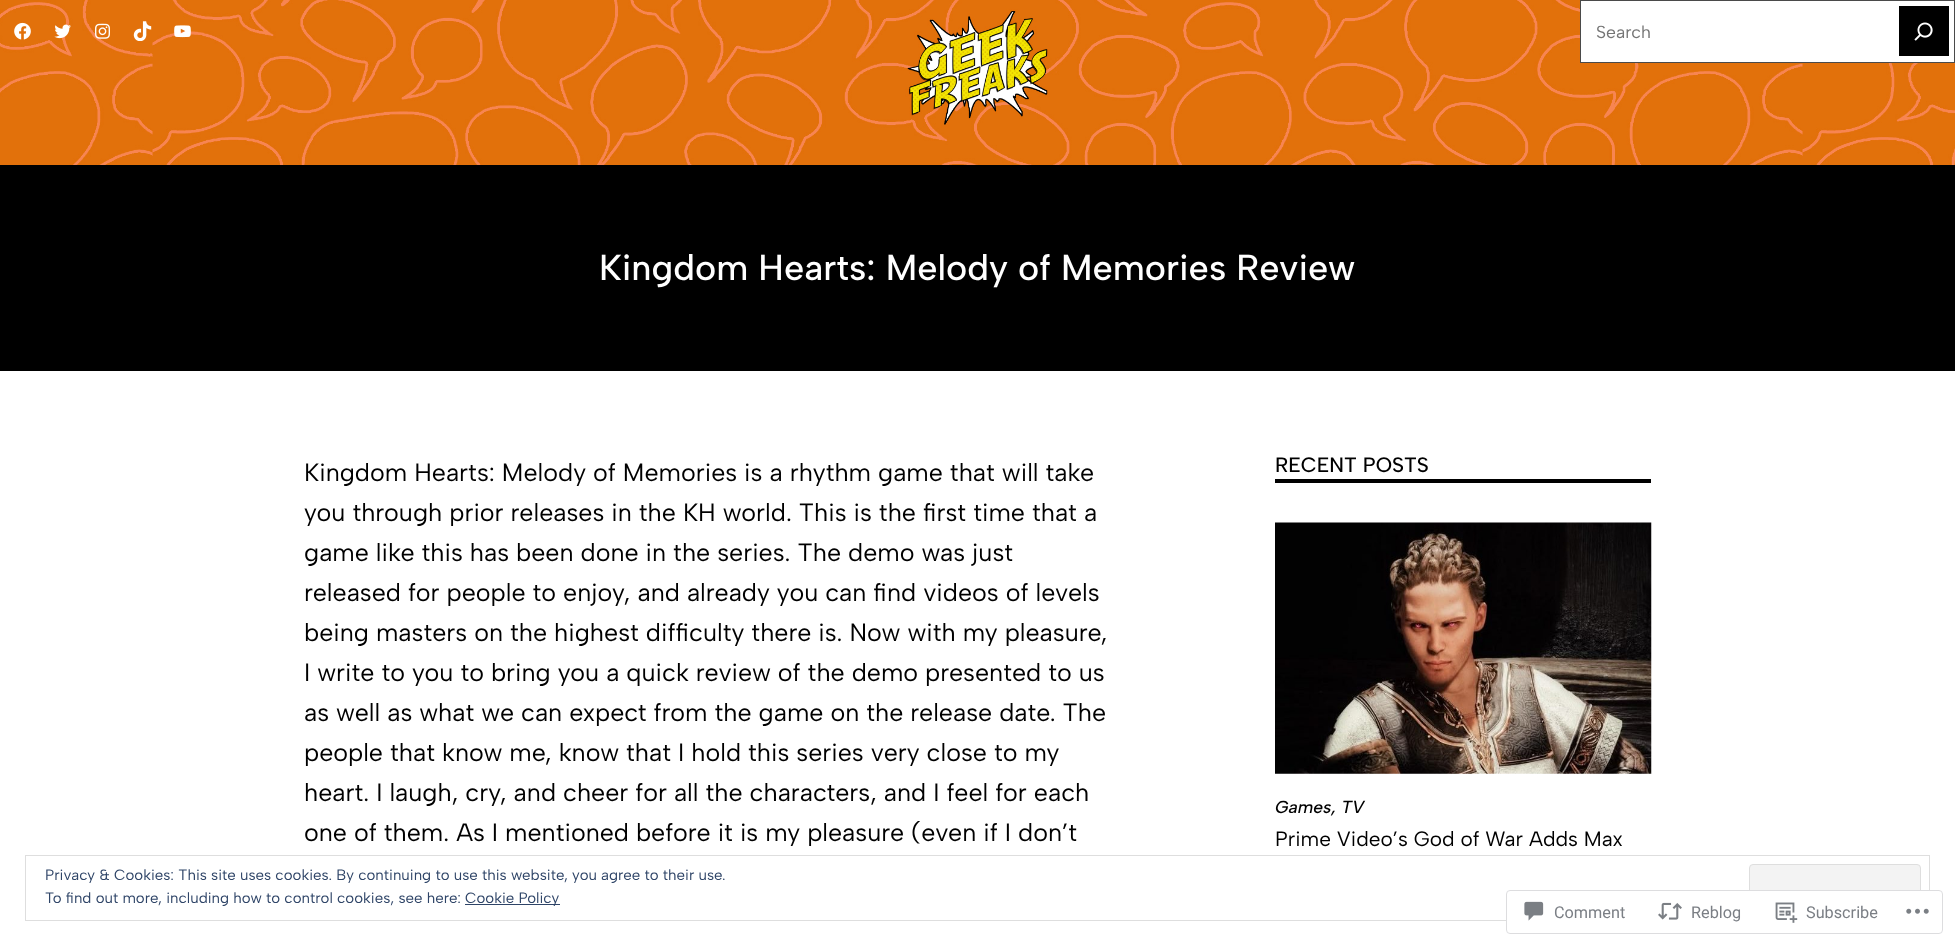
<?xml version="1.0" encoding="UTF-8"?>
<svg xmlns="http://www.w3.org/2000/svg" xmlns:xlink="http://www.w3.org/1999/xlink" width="1955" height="946">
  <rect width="100%" height="100%" fill="#ffffff" />
  <image x="0" y="0" width="1955" height="165" xlink:href="image1.png" />
  <image x="14" y="22" width="17" height="18" xlink:href="image2.png" />
  <image x="54" y="24" width="17" height="15" xlink:href="image3.png" />
  <image x="95" y="23" width="15" height="16" xlink:href="image4.png" />
  <image x="133" y="21" width="19" height="20" xlink:href="image5.png" />
  <image x="174" y="25" width="17" height="13" xlink:href="image6.png" />
  <rect x="1580.5" y="0.5" width="374" height="62" fill="#ffffff" stroke="#4a4a4a" />
  <rect x="1899" y="6" width="50" height="50" fill="#000000" />
  <image x="1914" y="22" width="19" height="19" xlink:href="image7.png" />
  <rect y="165" width="1955" height="206" fill="#000000" />
  <rect x="1275" y="479" width="376" height="4" fill="#000000" />
  <image x="1275" y="522" width="377" height="252" xlink:href="image8.png" />
  <rect x="25.5" y="855.5" width="1904" height="65" fill="none" stroke="#dedede" />
  <rect x="1749.5" y="864.5" width="171" height="48" rx="3.5" fill="#f3f3f3" stroke="#dedede" />
  <rect x="465" y="904" width="95" height="1" fill="#2e4467" />
  <rect x="1506" y="890" width="437" height="44" rx="4" fill="#ffffff" fill-opacity="0.98" />
  <rect x="1506.5" y="890.5" width="436" height="43" rx="3.5" fill="none" stroke="#dcdcde" stroke-opacity="0.98" />
  <image x="1524" y="901" width="20" height="20" xlink:href="image9.png" />
  <image x="1658" y="902" width="24" height="18" xlink:href="image10.png" />
  <image x="1775" y="902" width="23" height="21" xlink:href="image11.png" />
  <image x="1906" y="908" width="23" height="6" xlink:href="image12.png" />
  <text x="1596" y="38" style="font-family: Albert Sans; font-size: 17.5px; fill: #757575">Search</text>
  <text x="599" y="280" style="font-family: Albert Sans; font-size: 36px; font-weight: 500; fill: #ffffff">Kingdom Hearts: Melody of Memories Review</text>
  <text x="304" y="481" style="font-family: Albert Sans; font-size: 25px; fill: #000000">Kingdom Hearts: Melody of Memories is a rhythm game that will take</text>
  <text x="304" y="521" style="font-family: Albert Sans; font-size: 25px; fill: #000000">you through prior releases in the KH world. This is the first time that a</text>
  <text x="304" y="561" style="font-family: Albert Sans; font-size: 25px; fill: #000000">game like this has been done in the series. The demo was just</text>
  <text x="304" y="601" style="font-family: Albert Sans; font-size: 25px; fill: #000000">released for people to enjoy, and already you can find videos of levels</text>
  <text x="304" y="641" style="font-family: Albert Sans; font-size: 25px; fill: #000000">being masters on the highest difficulty there is. Now with my pleasure,</text>
  <text x="304" y="681" style="font-family: Albert Sans; font-size: 25px; fill: #000000">I write to you to bring you a quick review of the demo presented to us</text>
  <text x="304" y="721" style="font-family: Albert Sans; font-size: 25px; fill: #000000">as well as what we can expect from the game on the release date. The</text>
  <text x="304" y="761" style="font-family: Albert Sans; font-size: 25px; fill: #000000">people that know me, know that I hold this series very close to my</text>
  <text x="304" y="801" style="font-family: Albert Sans; font-size: 25px; fill: #000000">heart. I laugh, cry, and cheer for all the characters, and I feel for each</text>
  <text x="304" y="841" style="font-family: Albert Sans; font-size: 25px; fill: #000000">one of them. As I mentioned before it is my pleasure (even if I don’t</text>
  <text x="1275" y="472" style="font-family: Albert Sans; font-size: 20.8px; font-weight: 500; fill: #000000">RECENT POSTS</text>
  <text x="1275" y="813" style="font-family: Albert Sans; font-size: 17.5px; font-weight: 500; font-style: italic; fill: #000000">Games, TV</text>
  <text x="1275" y="846" style="font-family: Albert Sans; font-size: 20.8px; fill: #000000">Prime Video’s God of War Adds Max</text>
  <text x="45" y="880" style="font-family: Albert Sans; font-size: 15px; fill: #2e4467">Privacy &amp; Cookies: This site uses cookies. By continuing to use this website, you agree to their use.</text>
  <text x="45" y="903" style="font-family: Albert Sans; font-size: 15px; fill: #2e4467">To find out more, including how to control cookies, see here:</text>
  <text x="465" y="903" style="font-family: Albert Sans; font-size: 15px; fill: #2e4467">Cookie Policy</text>
  <text x="1554" y="918" style="font-family: Roboto; font-size: 16.25px; fill: #7b7f85">Comment</text>
  <text x="1691" y="918" style="font-family: Roboto; font-size: 16.25px; fill: #7b7f85">Reblog</text>
  <text x="1806" y="918" style="font-family: Roboto; font-size: 16.25px; fill: #7b7f85">Subscribe</text>
</svg>
